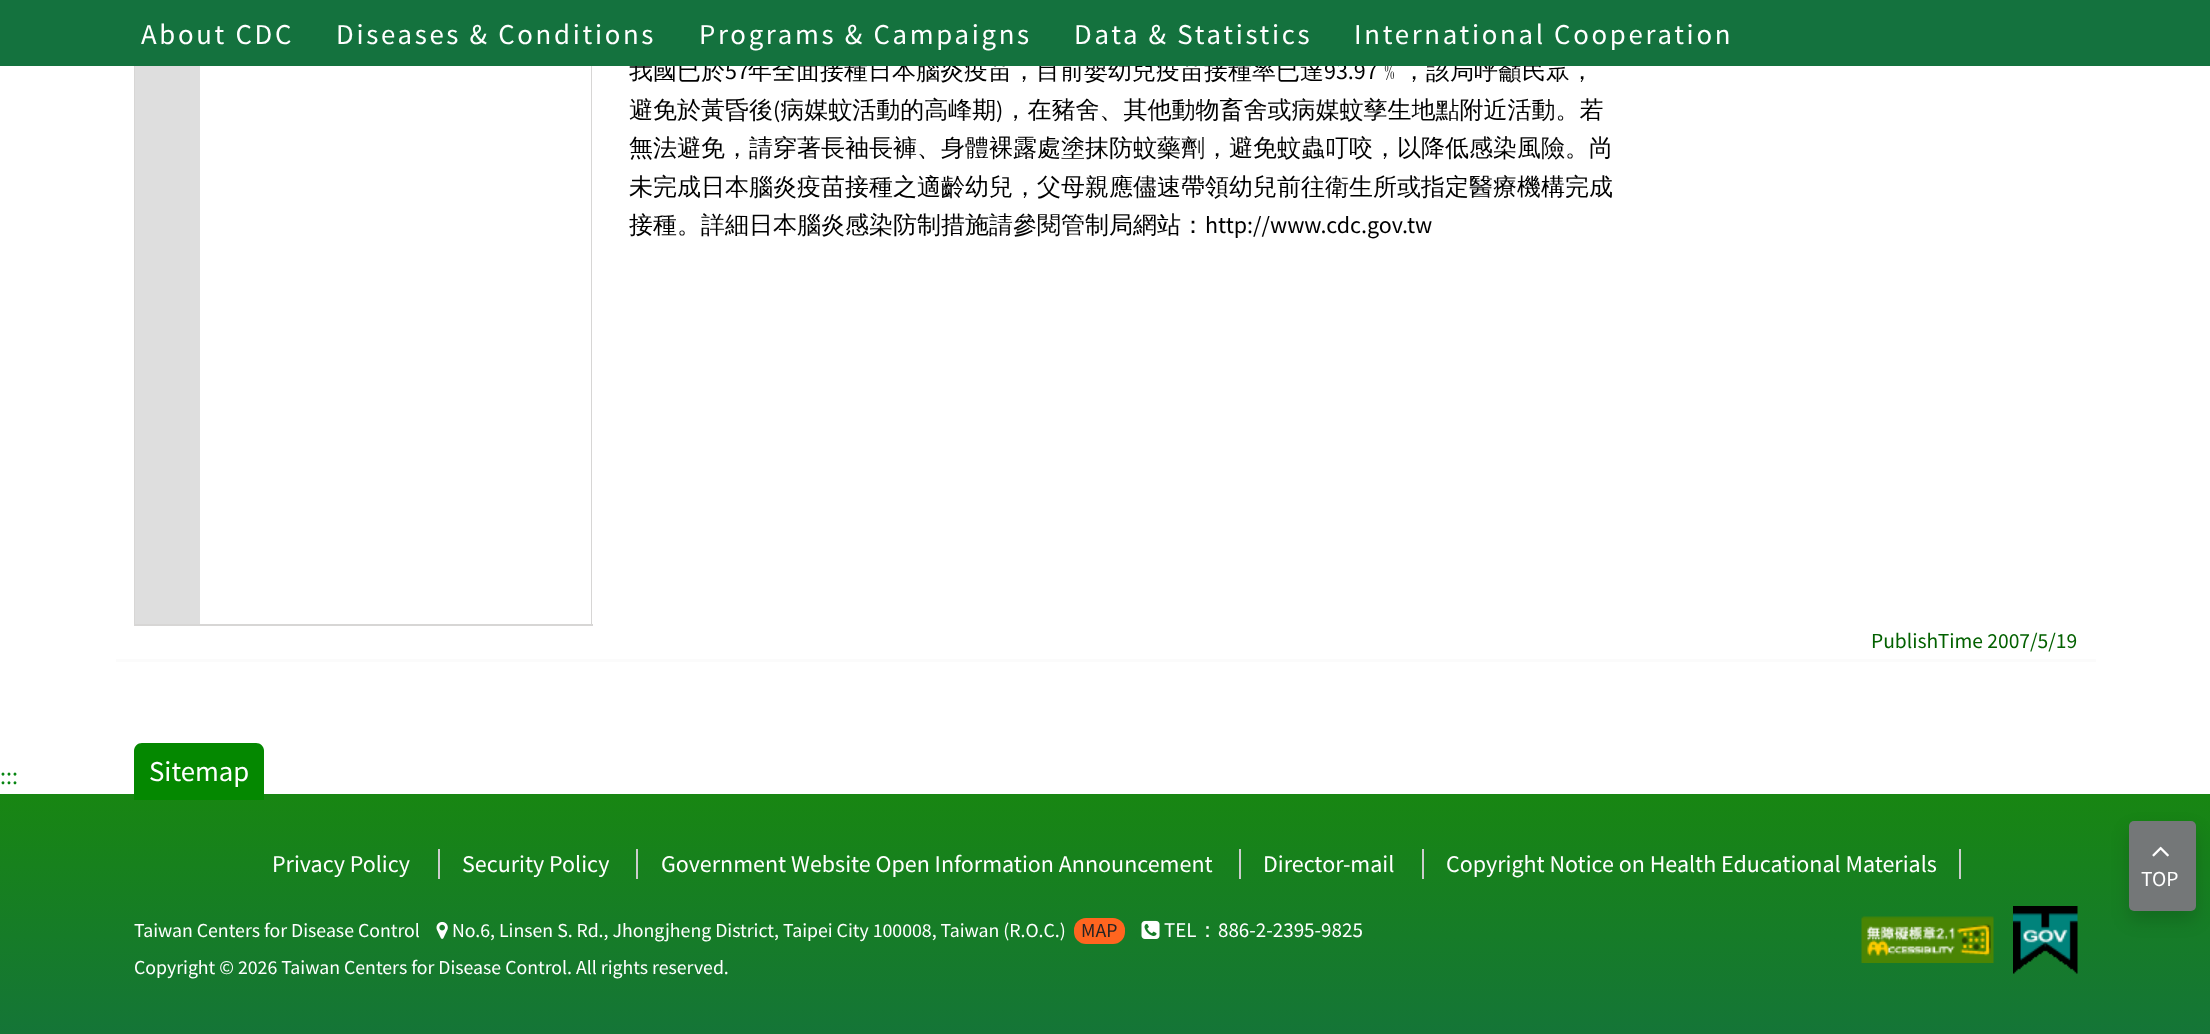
<?xml version="1.0" encoding="UTF-8"?>
<svg xmlns="http://www.w3.org/2000/svg" xmlns:xlink="http://www.w3.org/1999/xlink" width="2210" height="1034">
  <defs>
    <linearGradient id="g1" gradientUnits="userSpaceOnUse" x1="1106" y1="793" x2="1106" y2="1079"><stop offset="0" stop-color="#188612" /><stop offset="1" stop-color="#14723e" /></linearGradient>
  </defs>
  <rect width="100%" height="100%" fill="#ffffff" />
  <rect x="135" y="66" width="65" height="558" fill="#dedede" />
  <path d="M 592 -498 v 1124 l -1 -2 v -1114 z" fill="#d7d6d5" />
  <rect x="134" y="624" width="459" height="2" fill="#d7d6d5" />
  <path d="M 134 626 v -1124 l 1 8 v 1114 z" fill="#d7d6d5" />
  <rect x="116" y="659" width="1980" height="3" fill="#fbfbfb" />
  <rect y="794" width="2210" height="240" fill="url(#g1)" />
  <path d="M 142 743 h 114 c 4.5 0 8 3.5 8 8 v 49 h -130 v -49 c 0 -4.5 3.5 -8 8 -8 z" fill="#048800" />
  <rect x="438" y="849" width="2" height="30" fill="#cccccc" />
  <rect x="636" y="849" width="2" height="30" fill="#cccccc" />
  <rect x="1239" y="849" width="2" height="30" fill="#cccccc" />
  <rect x="1959" y="849" width="2" height="30" fill="#cccccc" />
  <rect x="1422" y="849" width="2" height="30" fill="#cccccc" />
  <image x="436" y="921" width="12" height="18" xlink:href="image1.png" />
  <rect x="1074" y="918" width="51" height="26" rx="12" fill="#ff651f" />
  <image x="1141" y="920" width="19" height="19" xlink:href="image2.png" />
  <image x="1861" y="916" width="133" height="47" xlink:href="image3.png" />
  <image x="2013" y="906" width="65" height="68" xlink:href="image4.png" />
  <rect x="2129" y="830" width="67" height="90" rx="5" fill="#000000" fill-opacity="0.15" filter="blur(9px)" />
  <rect x="2129" y="821" width="67" height="90" rx="5" fill="#747778" />
  <image x="2152" y="846" width="17" height="11" xlink:href="image5.png" />
  <text x="629" y="79" style="font-family: WenQuanYi Zen Hei; font-size: 24px; font-weight: 500; fill: #000000">我國已於</text>
  <text x="725" y="79" style="font-family: Source Sans Pro; font-size: 24px; fill: #000000">57</text>
  <text x="748" y="79" style="font-family: WenQuanYi Zen Hei; font-size: 24px; font-weight: 500; fill: #000000">年全面接種日本腦炎疫苗，目前嬰幼兒疫苗接種率已達</text>
  <text x="1324" y="79" style="font-family: Source Sans Pro; font-size: 24px; fill: #000000">93.97</text>
  <text x="1378" y="79" style="font-family: WenQuanYi Zen Hei; font-size: 24px; font-weight: 500; fill: #000000">﹪，該局呼籲民眾，</text>
  <rect width="2210" height="66" fill="#14723e" />
  <text x="1354" y="44" style="font-family: Source Sans Pro; font-size: 28.75px; letter-spacing: 2.7px; fill: #ffffff">International Cooperation</text>
  <text x="1074" y="44" style="font-family: Source Sans Pro; font-size: 28.75px; letter-spacing: 2.7px; fill: #ffffff">Data &amp; Statistics</text>
  <text x="699" y="44" style="font-family: Source Sans Pro; font-size: 28.75px; letter-spacing: 2.7px; fill: #ffffff">Programs &amp; Campaigns</text>
  <text x="336" y="44" style="font-family: Source Sans Pro; font-size: 28.75px; letter-spacing: 2.7px; fill: #ffffff">Diseases &amp; Conditions</text>
  <text x="141" y="44" style="font-family: Source Sans Pro; font-size: 28.75px; letter-spacing: 2.7px; fill: #ffffff">About CDC</text>
  <text x="629" y="118" style="font-family: WenQuanYi Zen Hei; font-size: 24px; font-weight: 500; fill: #000000">避免於黃昏後 病媒蚊活動的高峰期 ，在豬舍、其他動物畜舍或病媒蚊孳生地點附近活動。若</text>
  <text x="773" y="118" style="font-family: Source Sans Pro; font-size: 24px; fill: #000000">(</text>
  <text x="996" y="118" style="font-family: Source Sans Pro; font-size: 24px; fill: #000000">)</text>
  <text x="629" y="156" style="font-family: WenQuanYi Zen Hei; font-size: 24px; font-weight: 500; fill: #000000">無法避免，請穿著長袖長褲、身體裸露處塗抹防蚊藥劑，避免蚊蟲叮咬，以降低感染風險。尚</text>
  <text x="629" y="195" style="font-family: WenQuanYi Zen Hei; font-size: 24px; font-weight: 500; fill: #000000">未完成日本腦炎疫苗接種之適齡幼兒，父母親應儘速帶領幼兒前往衛生所或指定醫療機構完成</text>
  <text x="629" y="233" style="font-family: WenQuanYi Zen Hei; font-size: 24px; font-weight: 500; fill: #000000">接種。詳細日本腦炎感染防制措施請參閱管制局網站：</text>
  <text x="1205" y="233" style="font-family: Source Sans Pro; font-size: 24px; fill: #000000">http://www.cdc.gov.tw</text>
  <text x="1871" y="648" style="font-family: Source Sans Pro; font-size: 21.5px; fill: #036100">PublishTime 2007/5/19</text>
  <text x="0" y="784" style="font-family: Source Sans Pro; font-size: 24px; fill: #068511">:::</text>
  <text x="149" y="781" style="font-family: Source Sans Pro; font-size: 28.75px; fill: #ffffff">Sitemap</text>
  <text x="272" y="872" style="font-family: Source Sans Pro; font-size: 24px; fill: #ffffff">Privacy Policy</text>
  <text x="462" y="872" style="font-family: Source Sans Pro; font-size: 24px; fill: #ffffff">Security Policy</text>
  <text x="661" y="872" style="font-family: Source Sans Pro; font-size: 24px; fill: #ffffff">Government Website Open Information Announcement</text>
  <text x="1263" y="872" style="font-family: Source Sans Pro; font-size: 24px; fill: #ffffff">Director-mail</text>
  <text x="1446" y="872" style="font-family: Source Sans Pro; font-size: 24px; fill: #ffffff">Copyright Notice on Health Educational Materials</text>
  <text x="134" y="937" style="font-family: Source Sans Pro; font-size: 19.8px; fill: #ffffff">Taiwan Centers for Disease Control</text>
  <text x="452" y="937" style="font-family: Source Sans Pro; font-size: 19.8px; fill: #ffffff">No.6, Linsen S. Rd., Jhongjheng District, Taipei City 100008, Taiwan (R.O.C.)</text>
  <text x="1081" y="937" style="font-family: Source Sans Pro; font-size: 19.8px; fill: #242323">MAP</text>
  <text x="1164" y="937" style="font-family: Source Sans Pro; font-size: 21px; fill: #ffffff">TEL</text>
  <text x="1197" y="937" style="font-family: WenQuanYi Zen Hei; font-size: 21px; font-weight: 500; fill: #ffffff">：</text>
  <text x="1218" y="937" style="font-family: Source Sans Pro; font-size: 21px; fill: #ffffff">886-2-2395-9825</text>
  <text x="134" y="974" style="font-family: Source Sans Pro; font-size: 19.8px; fill: #ffffff">Copyright © 2026 Taiwan Centers for Disease Control. All rights reserved.</text>
  <text x="2141" y="886" style="font-family: Source Sans Pro; font-size: 21.5px; fill: #ffffff">TOP</text>
</svg>
